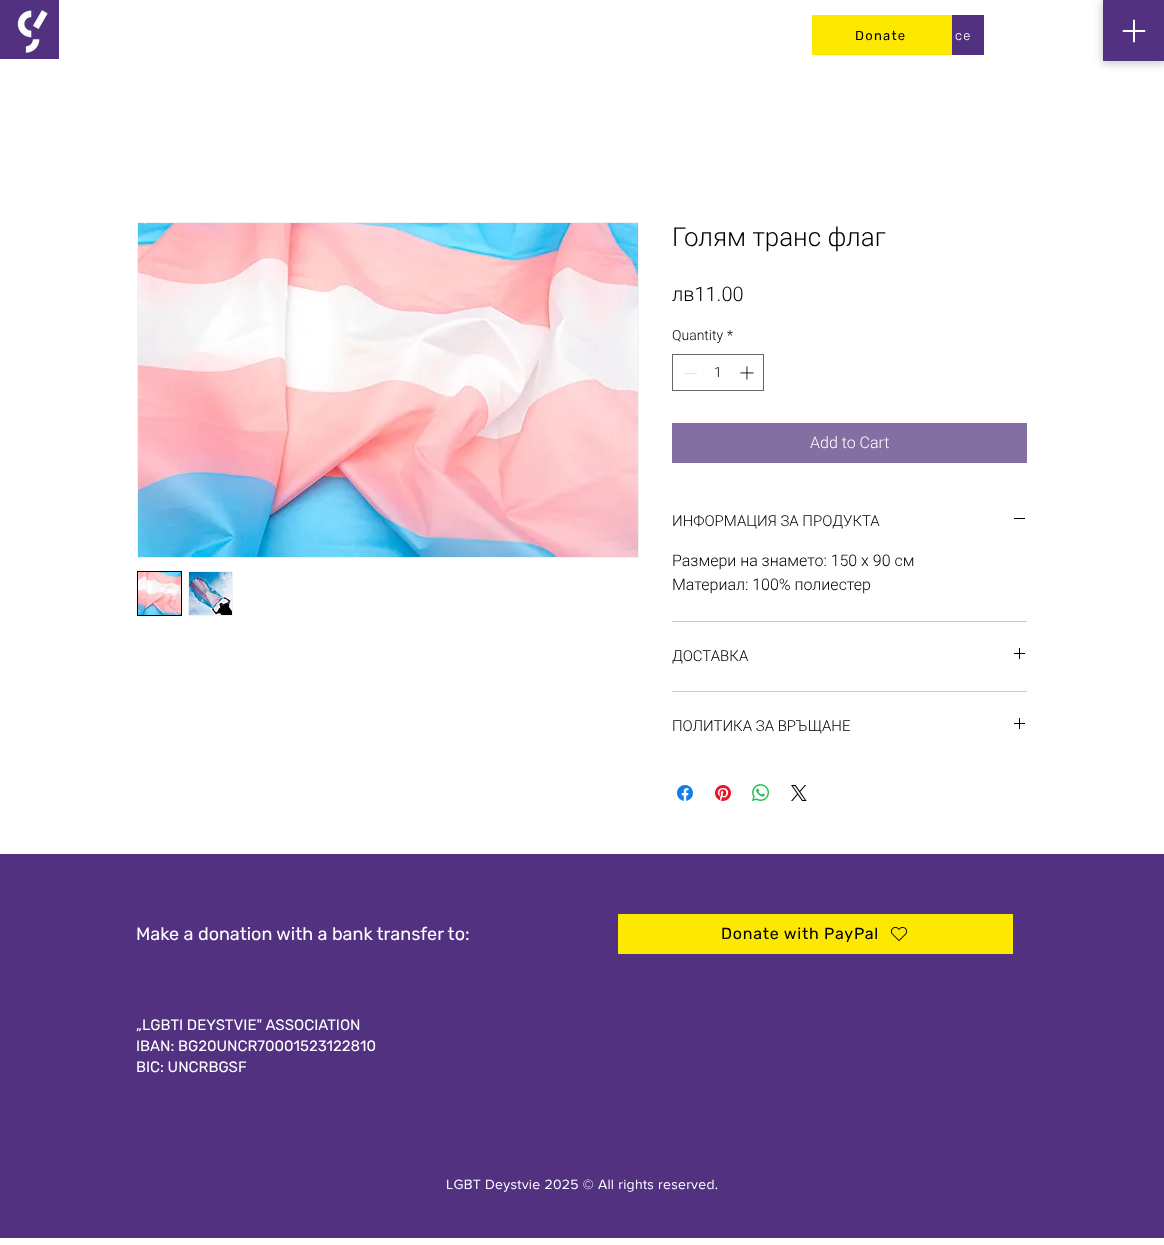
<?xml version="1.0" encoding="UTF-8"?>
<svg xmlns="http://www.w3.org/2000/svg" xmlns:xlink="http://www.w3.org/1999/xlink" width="1164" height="1245">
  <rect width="100%" height="100%" fill="#ffffff" />
  <rect width="59" height="59" fill="#523181" />
  <image x="17" y="10" width="31" height="43" xlink:href="image1.png" />
  <rect x="812" y="15" width="140" height="40" fill="#fde900" />
  <rect x="952" y="15" width="32" height="40" fill="#523181" />
  <rect x="1102" y="1" width="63" height="63" fill="#000000" fill-opacity="0.2" filter="blur(4px)" />
  <rect x="1103" width="61" height="61" fill="#523181" />
  <image x="1122" y="19" width="24" height="24" xlink:href="image2.png" />
  <rect x="137.5" y="222.5" width="501" height="335" fill="none" stroke="#f2f2f2" />
  <image x="138" y="223" width="500" height="334" xlink:href="image3.png" />
  <rect x="137.5" y="571.5" width="44" height="44" fill="none" stroke="#000000" />
  <image x="138" y="572" width="43" height="43" xlink:href="image4.png" />
  <rect x="188.5" y="571.5" width="44" height="44" fill="none" stroke="#f2f2f2" />
  <image x="189" y="572" width="43" height="43" xlink:href="image5.png" />
  <rect x="672.5" y="354.5" width="91" height="36" fill="none" stroke="#666666" />
  <rect x="684" y="373" width="13" height="1" fill="#e3e3e3" />
  <image x="740" y="366" width="14" height="14" xlink:href="image6.png" />
  <rect x="672" y="423" width="355" height="40" fill="#836fa1" />
  <rect x="672" y="621" width="355" height="1" fill="#c9c9c9" />
  <rect x="1014" y="518" width="11" height="1" fill="#000000" />
  <rect x="672" y="691" width="355" height="1" fill="#c9c9c9" />
  <image x="1014" y="648" width="11" height="11" xlink:href="image7.png" />
  <image x="1014" y="718" width="11" height="11" xlink:href="image7.png" />
  <image x="677" y="785" width="16" height="16" xlink:href="image8.png" />
  <image x="715" y="785" width="16" height="16" xlink:href="image9.png" />
  <image x="752" y="784" width="17" height="17" xlink:href="image10.png" />
  <image x="791" y="785" width="16" height="16" xlink:href="image11.png" />
  <rect y="854" width="1164" height="384" fill="#523181" />
  <rect x="618" y="914" width="395" height="40" fill="#fde900" />
  <image x="890" y="927" width="18" height="14" xlink:href="image12.png" />
  <text x="855" y="40" style="font-family: 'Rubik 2'; font-size: 13px; letter-spacing: 1.25px; fill: #000000">Donate</text>
  <text x="955" y="40" style="font-family: Rubik; font-size: 13px; font-weight: 300; letter-spacing: 1.25px; fill: #ffffff">ce</text>
  <text x="672" y="246" style="font-family: Roboto; font-size: 26px; font-weight: 300; fill: #000000">Голям транс флаг</text>
  <text x="672" y="301" style="font-family: Roboto; font-size: 20px; font-weight: 300; fill: #000000">лв11.00</text>
  <text x="672" y="340" style="font-family: Roboto; font-size: 14px; font-weight: 300; fill: #000000">Quantity</text>
  <text x="727" y="340" style="font-family: Roboto; font-size: 14px; font-weight: 300; fill: #000000">*</text>
  <text x="714" y="377" style="font-family: Roboto; font-size: 14px; font-weight: 300; fill: #000000">1</text>
  <text x="810" y="448" style="font-family: Roboto; font-size: 16px; font-weight: 300; fill: #ffffff">Add to Cart</text>
  <text x="672" y="526" style="font-family: Roboto; font-size: 15px; font-weight: 300; fill: #000000">ИНФОРМАЦИЯ ЗА ПРОДУКТА</text>
  <text x="672" y="566" style="font-family: Roboto; font-size: 16px; font-weight: 300; fill: #000000">Размери на знамето: 150 х 90 см</text>
  <text x="672" y="590" style="font-family: Roboto; font-size: 16px; font-weight: 300; fill: #000000">Материал: 100% полиестер</text>
  <text x="672" y="661" style="font-family: Roboto; font-size: 15px; font-weight: 300; fill: #000000">ДОСТАВКА</text>
  <text x="672" y="731" style="font-family: Roboto; font-size: 15px; font-weight: 300; fill: #000000">ПОЛИТИКА ЗА ВРЪЩАНЕ</text>
  <text x="136" y="940" style="font-family: Rubik; font-size: 18px; fill: #ffffff">Make a donation with a bank transfer to:</text>
  <text x="721" y="939" style="font-family: Rubik; font-size: 16px; letter-spacing: 0.75px; fill: #000000">Donate with PayPal</text>
  <text x="136" y="1030" style="font-family: Rubik; font-size: 15px; fill: #ffffff">„LGBTI DEYSTVIE" ASSOCIATION</text>
  <text x="136" y="1051" style="font-family: Rubik; font-size: 15px; fill: #ffffff">IBAN: BG20UNCR70001523122810</text>
  <text x="136" y="1072" style="font-family: Rubik; font-size: 15px; fill: #ffffff">BIC: UNCRBGSF</text>
  <text x="446" y="1189" style="font-family: 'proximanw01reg'; font-size: 14px; letter-spacing: 0.3px; fill: #ffffff">LGBT Deystvie 2025 © All rights reserved.</text>
</svg>
